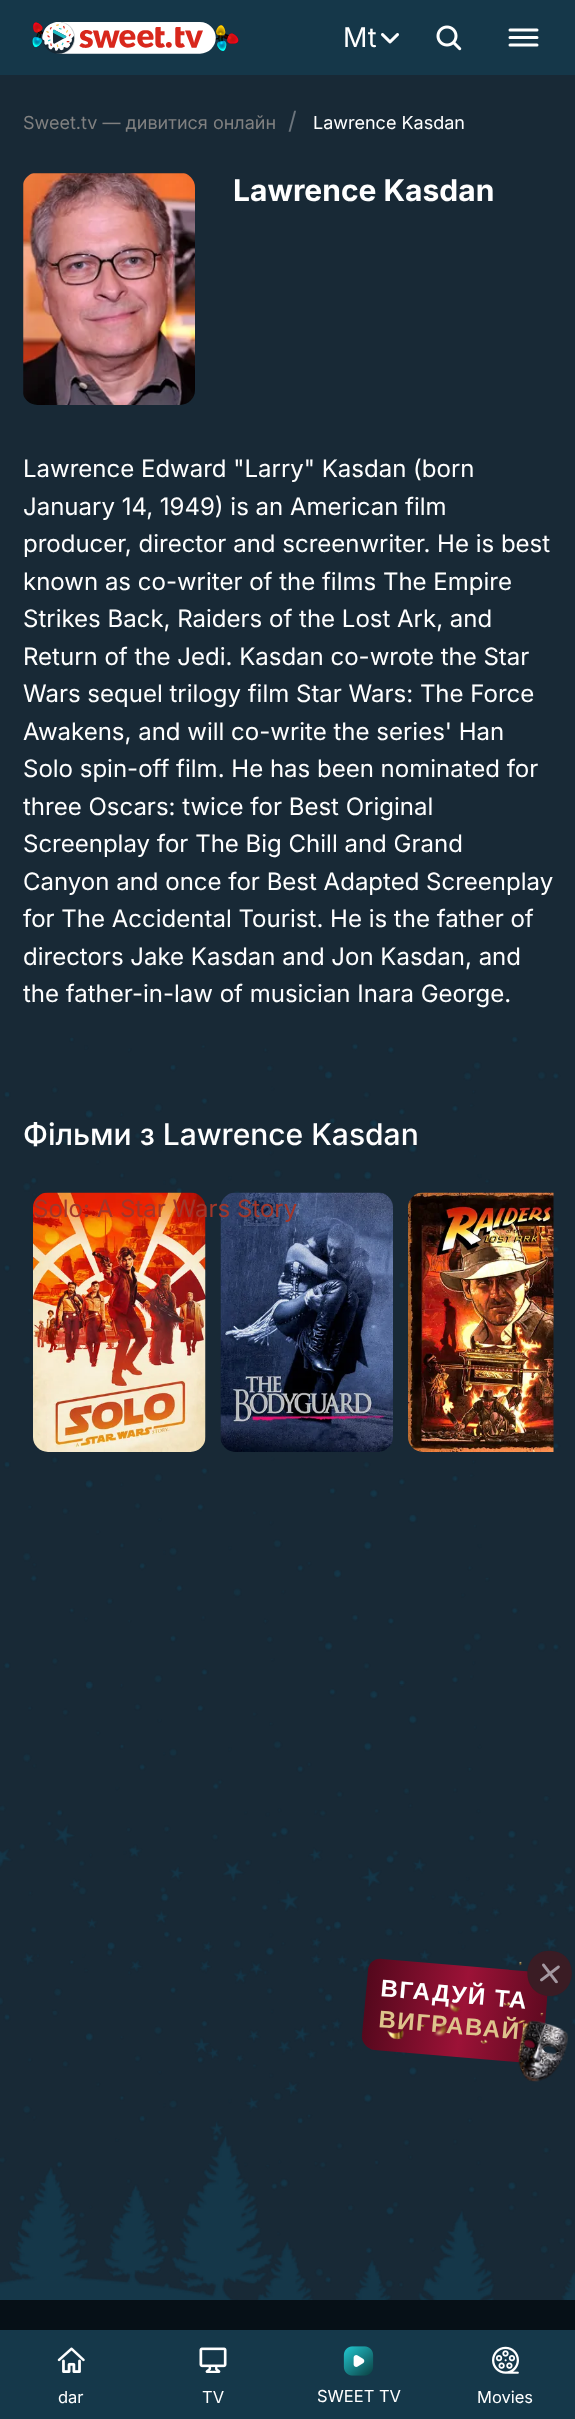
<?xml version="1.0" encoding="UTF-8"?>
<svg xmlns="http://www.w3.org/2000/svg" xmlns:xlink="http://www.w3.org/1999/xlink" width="575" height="2419">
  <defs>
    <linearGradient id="g1" gradientUnits="userSpaceOnUse" x1="363" y1="1997" x2="548" y2="2024"><stop offset="0" stop-color="#53081c" /><stop offset="0.54" stop-color="#9c1237" /><stop offset="0.97" stop-color="#610a21" /></linearGradient>
  </defs>
  <rect width="100%" height="100%" fill="#182936" />
  <rect width="575" height="75" fill="#153749" />
  <image x="32" y="22" width="207" height="32" xlink:href="image1.png" />
  <image x="381" y="33" width="18" height="11" xlink:href="image2.png" />
  <image x="436" y="25" width="26" height="26" xlink:href="image3.png" />
  <path d="M 510 30 h 27 m -27 7.5 h 27 m -27 7.5 h 27" fill="none" stroke="#ffffff" stroke-width="3" stroke-linecap="round" />
  <image x="23" y="173" width="172" height="232" xlink:href="image4.png" />
  <image x="0" y="1037" width="575" height="1263" xlink:href="image8.png" />
  <image x="33" y="1192" width="173" height="260" xlink:href="image5.png" />
  <image x="220" y="1192" width="173" height="260" xlink:href="image6.png" />
  <image x="408" y="1192" width="146" height="260" xlink:href="image7.png" />
  <path d="M 382 1959 l 154 13 c 8 1 13 7 12 15 l -5 64 c -1 7 -7 13 -15 12 l -154 -13 c -7 -1 -13 -8 -12 -15 l 6 -64 c 0 -8 7 -13 14 -12 z" fill="url(#g1)" />
  <rect y="2300" width="575" height="30" fill="#061017" />
  <rect y="2330" width="575" height="89" fill="#15384a" />
  <image x="57" y="2347" width="28" height="26" xlink:href="image12.png" />
  <image x="199" y="2347" width="28" height="26" xlink:href="image13.png" />
  <image x="343" y="2346" width="31" height="30" xlink:href="image14.png" />
  <image x="492" y="2346" width="27" height="28" xlink:href="image15.png" />
  <text x="343" y="47" style="font-family: Inter; font-size: 27px; fill: #ffffff">Mt</text>
  <text x="23" y="129" style="font-family: Inter; font-size: 18px; fill: #808080">Sweet.tv — дивитися онлайн</text>
  <text x="288" y="129" style="font-family: Inter; font-size: 24px; fill: #6c757d">/</text>
  <text x="313" y="129" style="font-family: Inter; font-size: 18px; fill: #ffffff">Lawrence Kasdan</text>
  <text x="233" y="201" style="font-family: Inter; font-size: 30px; font-weight: bold; fill: #ffffff">Lawrence Kasdan</text>
  <text x="23" y="477" style="font-family: Inter; font-size: 24px; fill: #ffffff">Lawrence Edward "Larry" Kasdan (born</text>
  <text x="23" y="515" style="font-family: Inter; font-size: 24px; fill: #ffffff">January 14, 1949) is an American film</text>
  <text x="23" y="552" style="font-family: Inter; font-size: 24px; fill: #ffffff">producer, director and screenwriter. He is best</text>
  <text x="23" y="590" style="font-family: Inter; font-size: 24px; fill: #ffffff">known as co-writer of the films The Empire</text>
  <text x="23" y="627" style="font-family: Inter; font-size: 24px; fill: #ffffff">Strikes Back, Raiders of the Lost Ark, and</text>
  <text x="23" y="665" style="font-family: Inter; font-size: 24px; fill: #ffffff">Return of the Jedi. Kasdan co-wrote the Star</text>
  <text x="23" y="702" style="font-family: Inter; font-size: 24px; fill: #ffffff">Wars sequel trilogy film Star Wars: The Force</text>
  <text x="23" y="740" style="font-family: Inter; font-size: 24px; fill: #ffffff">Awakens, and will co-write the series' Han</text>
  <text x="23" y="777" style="font-family: Inter; font-size: 24px; fill: #ffffff">Solo spin-off film. He has been nominated for</text>
  <text x="23" y="815" style="font-family: Inter; font-size: 24px; fill: #ffffff">three Oscars: twice for Best Original</text>
  <text x="23" y="852" style="font-family: Inter; font-size: 24px; fill: #ffffff">Screenplay for The Big Chill and Grand</text>
  <text x="23" y="890" style="font-family: Inter; font-size: 24px; fill: #ffffff">Canyon and once for Best Adapted Screenplay</text>
  <text x="23" y="927" style="font-family: Inter; font-size: 24px; fill: #ffffff">for The Accidental Tourist. He is the father of</text>
  <text x="23" y="965" style="font-family: Inter; font-size: 24px; fill: #ffffff">directors Jake Kasdan and Jon Kasdan, and</text>
  <text x="23" y="1002" style="font-family: Inter; font-size: 24px; fill: #ffffff">the father-in-law of musician Inara George.</text>
  <text x="23" y="1145" style="font-family: Inter; font-size: 30px; font-weight: 500; fill: #ffffff">Фільми з Lawrence Kasdan</text>
  <text x="33" y="1217" style="font-family: Inter; font-size: 24px; fill: #a2372a">Solo: A Star Wars Story</text>
  <text x="380" y="1996" transform="rotate(5 380 1996)" style="font-family: Liberation Sans; font-size: 24px; font-weight: bold; letter-spacing: 1.5px; fill: #ffffff">ВГАДУЙ ТА</text>
  <text x="378" y="2027" transform="rotate(5 378 2027)" style="font-family: Liberation Sans; font-size: 24px; font-weight: bold; letter-spacing: 1.5px; fill: #dec38c">ВИГРАВАЙ!</text>
  <image x="387" y="1961" width="157" height="83" xlink:href="image10.png" />
  <path d="M 552 1951 c 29 2 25 47 -4 45 c -30 -3 -26 -48 4 -45 z" fill="#3a1c24" />
  <image x="540" y="1963" width="20" height="21" xlink:href="image9.png" />
  <image x="518" y="2020" width="51" height="62" xlink:href="image11.png" />
  <text x="58" y="2403" style="font-family: Inter; font-size: 16.5px; fill: #ffffff">dar</text>
  <text x="202" y="2403" style="font-family: Inter; font-size: 16.5px; fill: #ffffff">TV</text>
  <text x="317" y="2402" style="font-family: Inter; font-size: 16.5px; fill: #ffffff">SWEET TV</text>
  <text x="477" y="2403" style="font-family: Inter; font-size: 16.5px; fill: #ffffff">Movies</text>
</svg>
